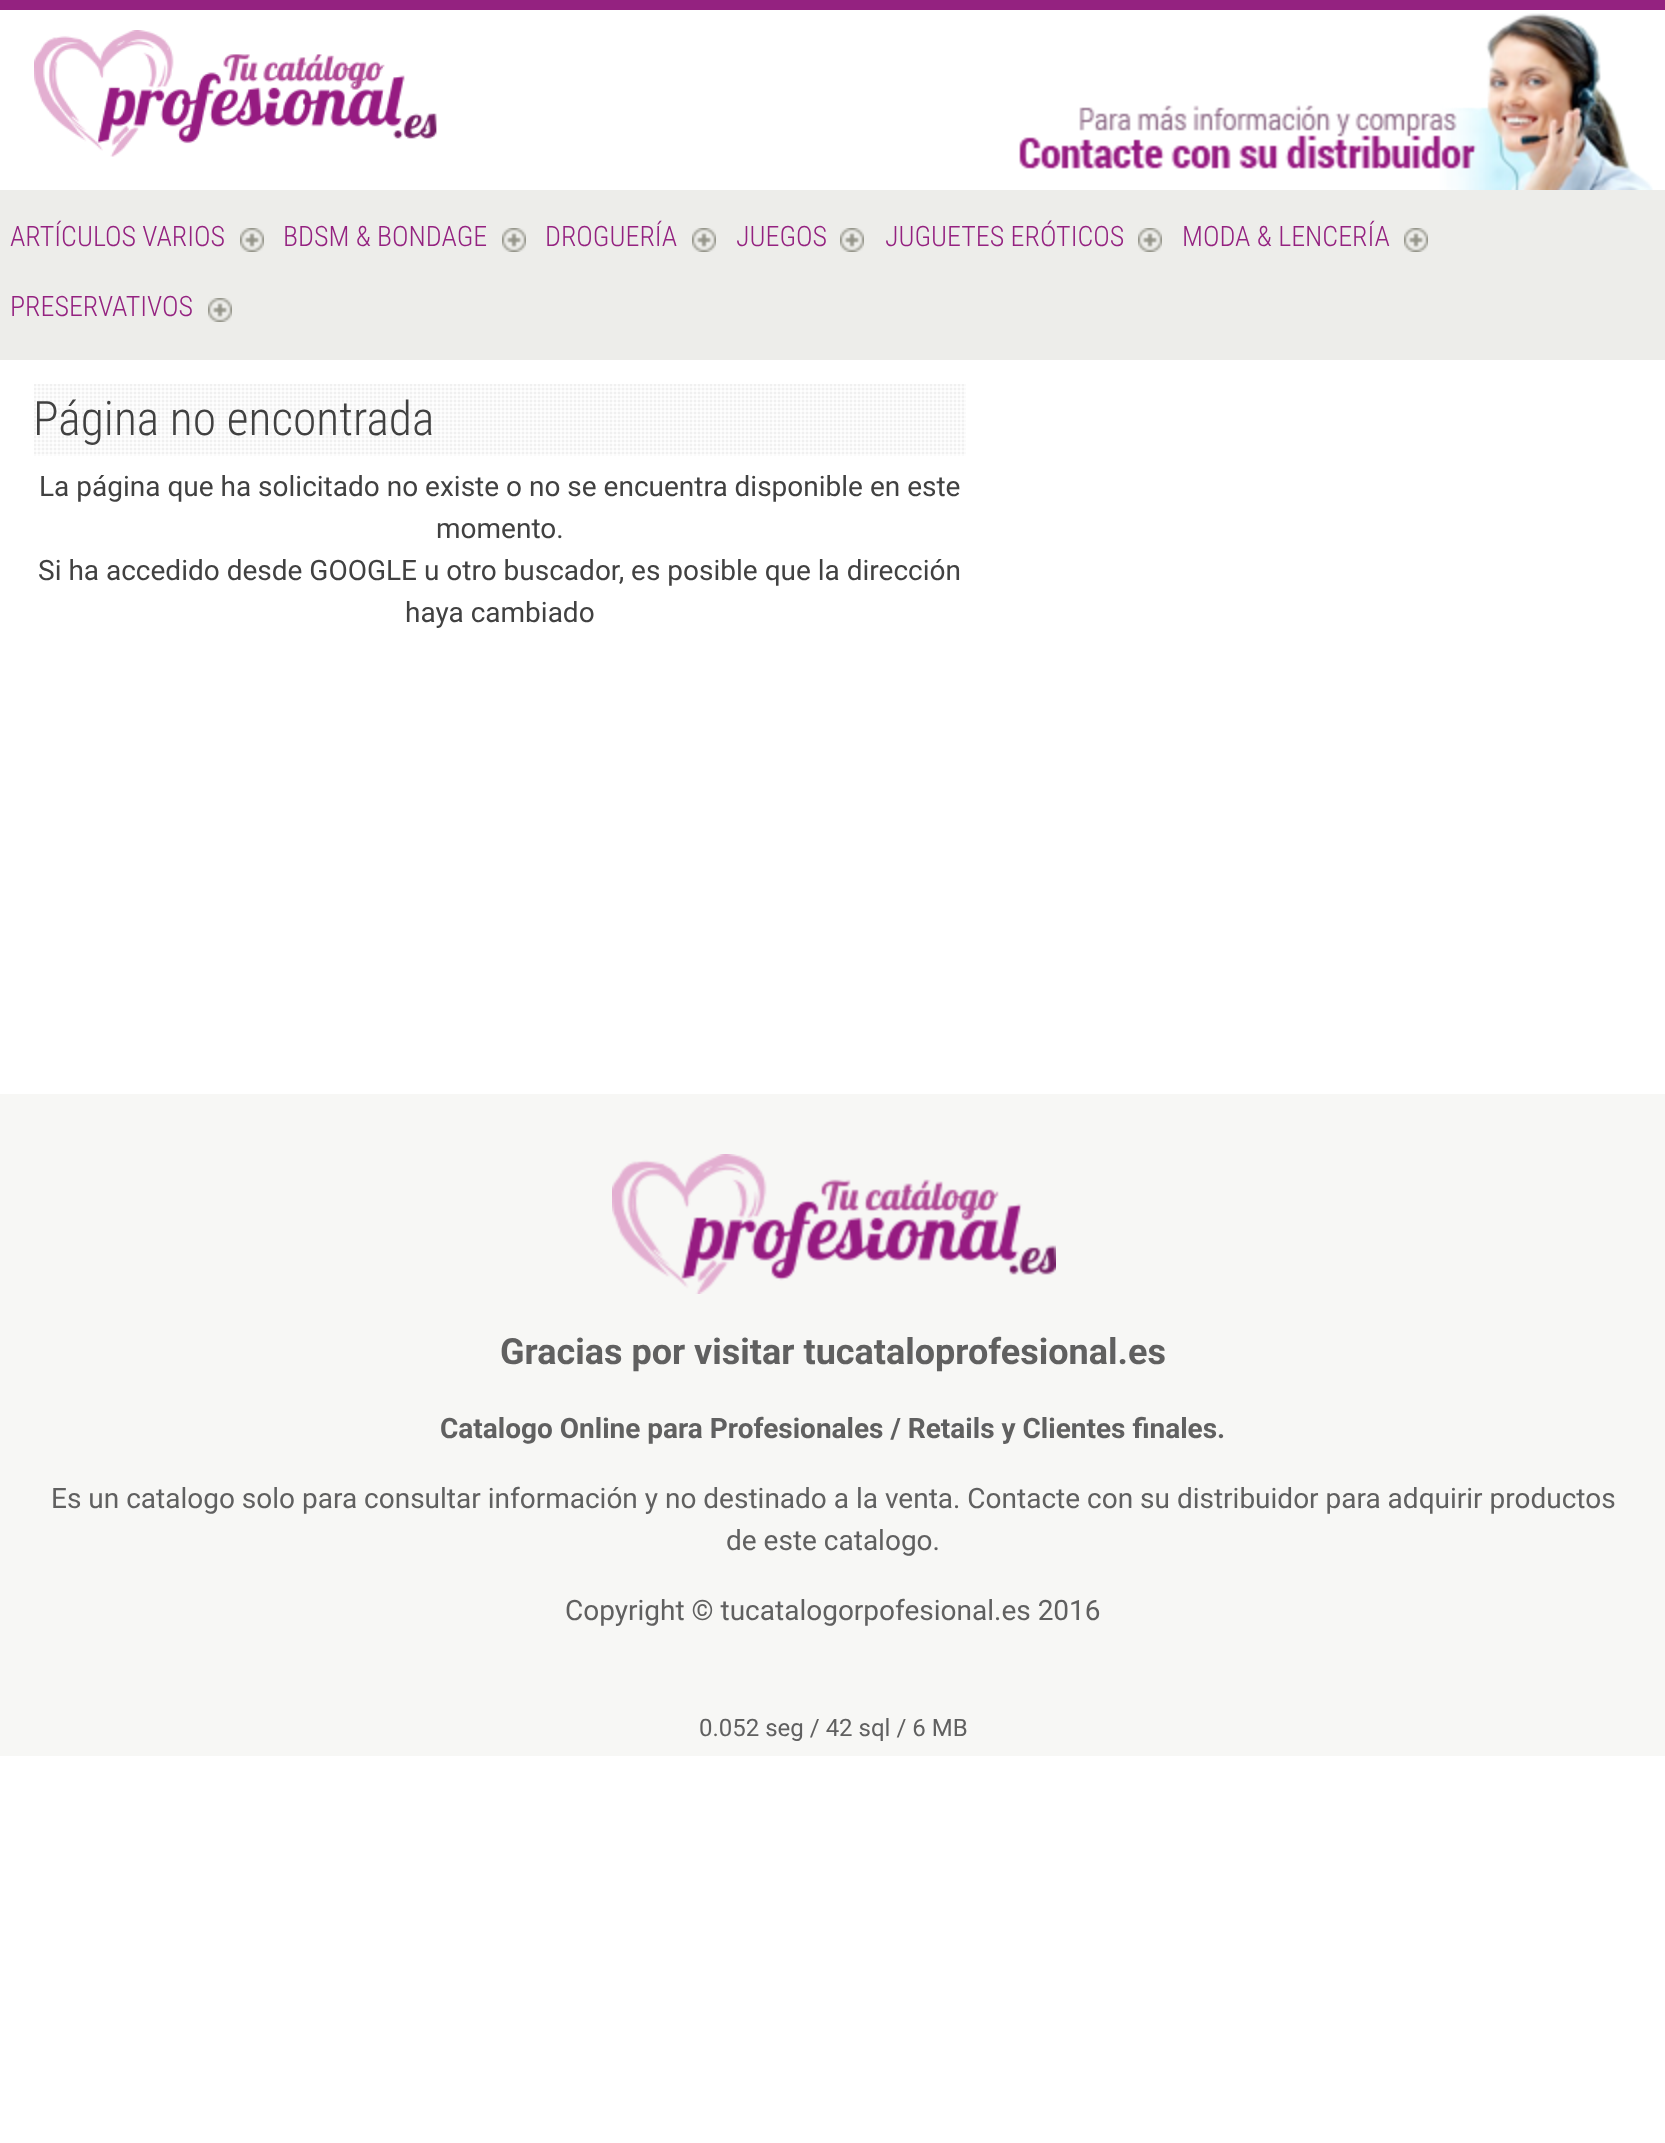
<?xml version="1.0" encoding="UTF-8"?>
<svg xmlns="http://www.w3.org/2000/svg" xmlns:xlink="http://www.w3.org/1999/xlink" width="1665" height="2143">
  <rect width="100%" height="100%" fill="#ffffff" />
  <image x="1019" y="13" width="634" height="177" xlink:href="image1.png" />
  <rect width="1665" height="10" fill="#942280" />
  <image x="34" y="30" width="403" height="127" xlink:href="image2.png" />
  <rect y="190" width="1665" height="170" fill="#ededea" />
  <image x="240" y="228" width="24" height="24" xlink:href="image3.png" />
  <image x="502" y="228" width="24" height="24" xlink:href="image3.png" />
  <image x="692" y="228" width="24" height="24" xlink:href="image3.png" />
  <image x="840" y="228" width="24" height="24" xlink:href="image3.png" />
  <image x="1138" y="228" width="24" height="24" xlink:href="image3.png" />
  <image x="1404" y="228" width="24" height="24" xlink:href="image3.png" />
  <image x="208" y="298" width="24" height="24" xlink:href="image3.png" />
  <image x="34" y="384" width="932" height="72" xlink:href="image4.png" />
  <rect y="1094" width="1665" height="662" fill="#f7f7f5" />
  <image x="612" y="1154" width="444" height="140" xlink:href="image5.png" />
  <text x="10" y="246" style="font-family: Roboto Condensed; font-size: 28px; font-weight: 300; fill: #942280">ARTÍCULOS VARIOS</text>
  <text x="283" y="246" style="font-family: Roboto Condensed; font-size: 28px; font-weight: 300; fill: #942280">BDSM &amp; BONDAGE</text>
  <text x="545" y="246" style="font-family: Roboto Condensed; font-size: 28px; font-weight: 300; fill: #942280">DROGUERÍA</text>
  <text x="736" y="246" style="font-family: Roboto Condensed; font-size: 28px; font-weight: 300; fill: #942280">JUEGOS</text>
  <text x="885" y="246" style="font-family: Roboto Condensed; font-size: 28px; font-weight: 300; fill: #942280">JUGUETES ERÓTICOS</text>
  <text x="1182" y="246" style="font-family: Roboto Condensed; font-size: 28px; font-weight: 300; fill: #942280">MODA &amp; LENCERÍA</text>
  <text x="10" y="316" style="font-family: Roboto Condensed; font-size: 28px; font-weight: 300; fill: #942280">PRESERVATIVOS</text>
  <text x="33" y="435" style="font-family: Roboto Condensed; font-size: 47.5px; font-weight: 300; fill: #414141">Página no encontrada</text>
  <text x="39" y="496" style="font-family: Roboto; font-size: 28px; fill: #414141">La página que ha solicitado no existe o no se encuentra disponible en este</text>
  <text x="436" y="538" style="font-family: Roboto; font-size: 28px; fill: #414141">momento.</text>
  <text x="38" y="580" style="font-family: Roboto; font-size: 28px; fill: #414141">Si ha accedido desde GOOGLE u otro buscador, es posible que la dirección</text>
  <text x="405" y="622" style="font-family: Roboto; font-size: 28px; fill: #414141">haya cambiado</text>
  <text x="500" y="1364" style="font-family: Roboto; font-size: 36px; font-weight: bold; fill: #606060">Gracias por visitar tucataloprofesional.es</text>
  <text x="440" y="1438" style="font-family: Roboto; font-size: 28px; font-weight: bold; fill: #606060">Catalogo Online para Profesionales / Retails y Clientes finales.</text>
  <text x="51" y="1508" style="font-family: Roboto; font-size: 28px; fill: #606060">Es un catalogo solo para consultar información y no destinado a la venta. Contacte con su distribuidor para adquirir productos</text>
  <text x="726" y="1550" style="font-family: Roboto; font-size: 28px; fill: #606060">de este catalogo.</text>
  <text x="565" y="1620" style="font-family: Roboto; font-size: 28px; fill: #606060">Copyright © tucatalogorpofesional.es 2016</text>
  <text x="699" y="1736" style="font-family: Roboto; font-size: 24px; fill: #606060">0.052 seg / 42 sql / 6 MB</text>
</svg>
